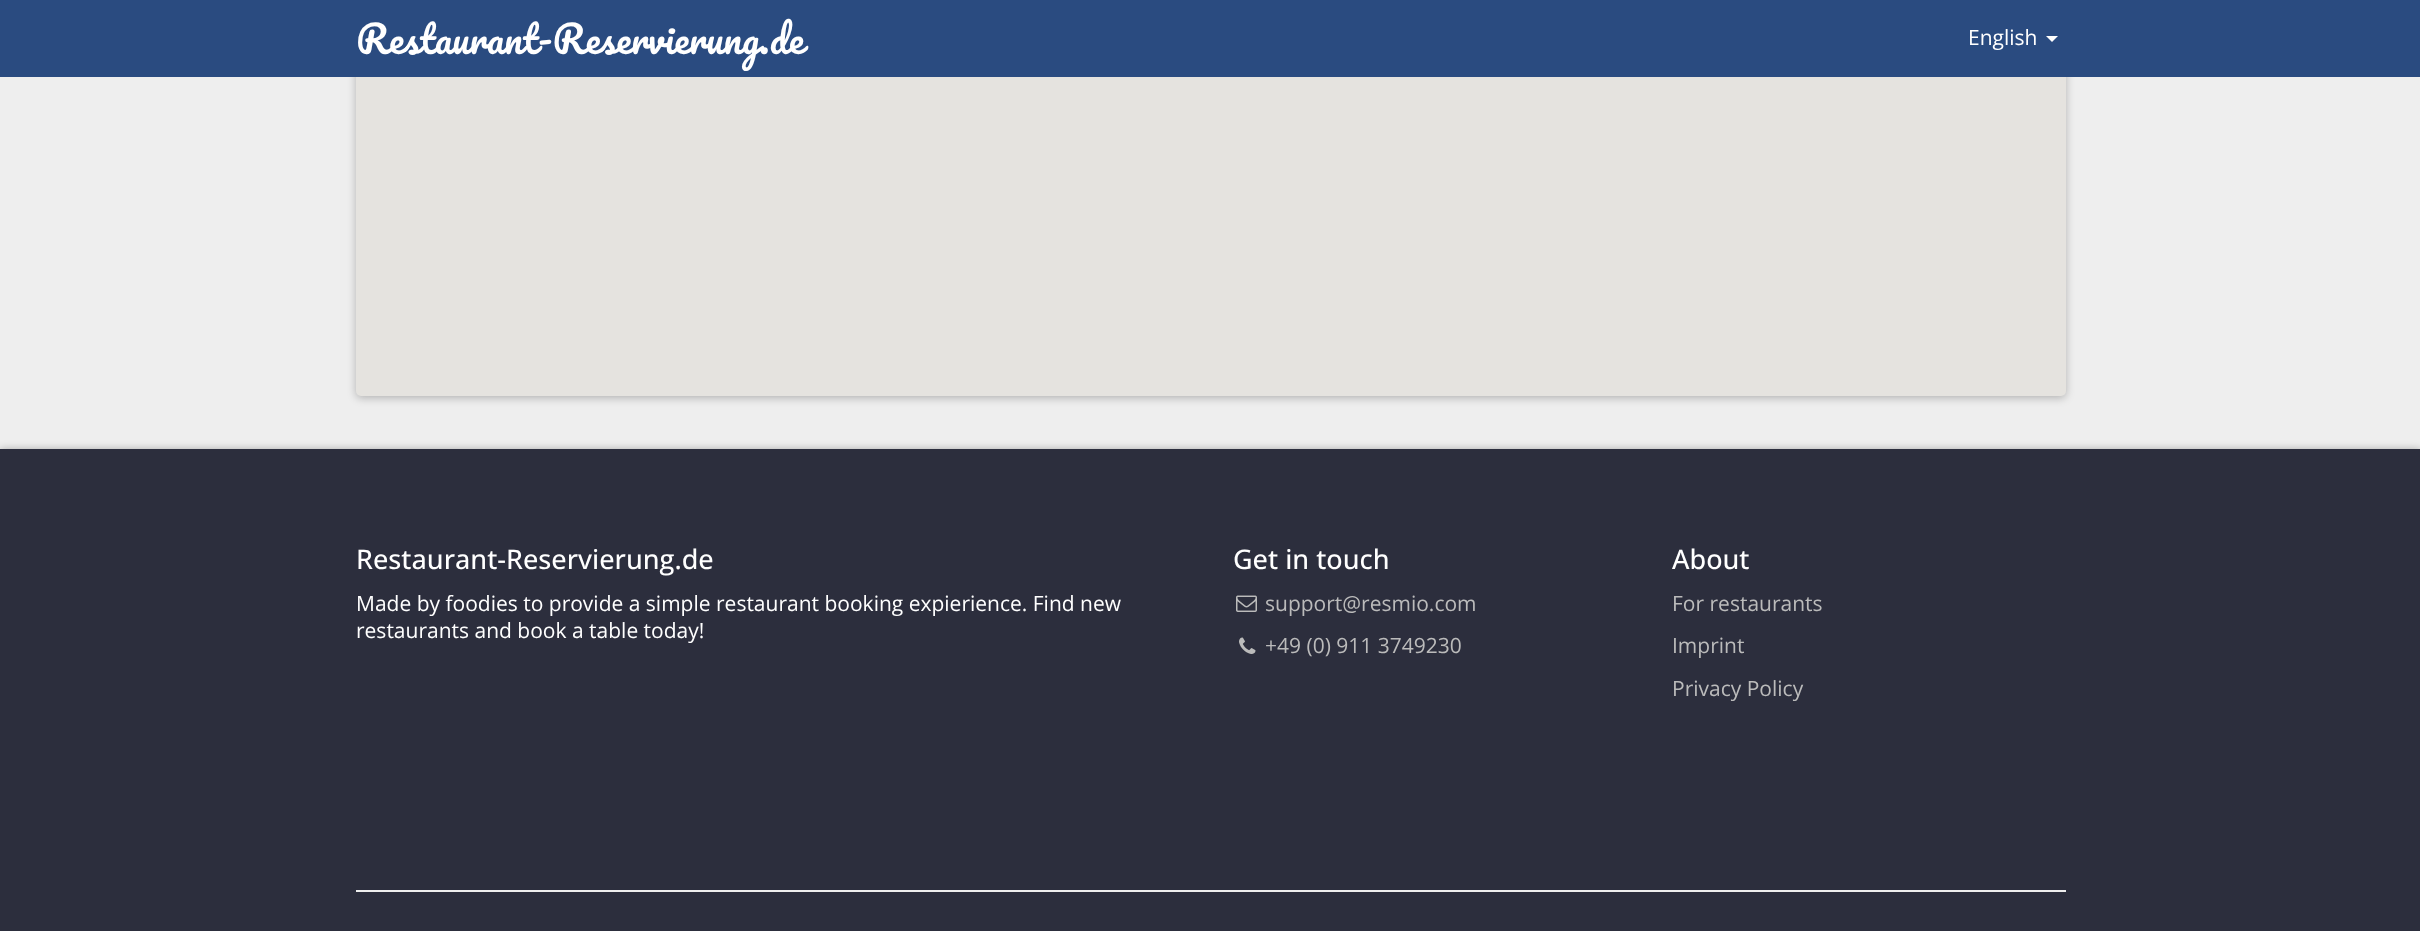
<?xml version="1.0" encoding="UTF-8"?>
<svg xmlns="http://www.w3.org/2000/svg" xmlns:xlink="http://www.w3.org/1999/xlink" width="2420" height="931">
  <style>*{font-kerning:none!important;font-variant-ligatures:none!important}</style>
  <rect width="100%" height="100%" fill="#eeeeee" />
  <rect x="356" y="-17" width="1710" height="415" rx="5" fill="#000000" fill-opacity="0.25" filter="blur(4px)" />
  <rect x="356" y="-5" width="1710" height="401" rx="5" fill="#e5e3df" />
  <rect width="2420" height="77" fill="#2a4b80" />
  <path d="M 2046 36 h 12 l -6 6 z" fill="#ffffff" />
  <rect y="450" width="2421" height="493" fill="#000000" fill-opacity="0.35" filter="blur(4px)" />
  <rect y="449" width="2420" height="482" fill="#2c2e3d" />
  <image x="1236" y="595" width="21" height="17" xlink:href="image1.png" />
  <image x="1239" y="637" width="17" height="17" xlink:href="image2.png" />
  <rect x="356" y="890" width="1710" height="2" fill="#eeeeee" />
  <text x="356" y="54" style="font-family: Pacifico; font-size: 37.5px; fill: #ffffff">Restaurant-Reservierung.de</text>
  <text x="1968" y="45" style="font-family: Open Sans; font-size: 21px; fill: #ffffff">English</text>
  <text x="356" y="569" style="font-family: Open Sans; font-size: 27px; font-weight: 500; fill: #ffffff">Restaurant-Reservierung.de</text>
  <text x="356" y="611" style="font-family: Open Sans; font-size: 21px; fill: #ffffff">Made by foodies to provide a simple restaurant booking expierience. Find new</text>
  <text x="356" y="638" style="font-family: Open Sans; font-size: 21px; fill: #ffffff">restaurants and book a table today!</text>
  <text x="1233" y="569" style="font-family: Open Sans; font-size: 27px; font-weight: 500; fill: #ffffff">Get in touch</text>
  <text x="1265" y="611" style="font-family: Open Sans; font-size: 21px; fill: #bbbbbb">support@resmio.com</text>
  <text x="1265" y="653" style="font-family: Open Sans; font-size: 21px; fill: #bbbbbb">+49 (0) 911 3749230</text>
  <text x="1672" y="569" style="font-family: Open Sans; font-size: 27px; font-weight: 500; fill: #ffffff">About</text>
  <text x="1672" y="611" style="font-family: Open Sans; font-size: 21px; fill: #bbbbbb">For restaurants</text>
  <text x="1672" y="653" style="font-family: Open Sans; font-size: 21px; fill: #bbbbbb">Imprint</text>
  <text x="1672" y="696" style="font-family: Open Sans; font-size: 21px; fill: #bbbbbb">Privacy Policy</text>
</svg>
